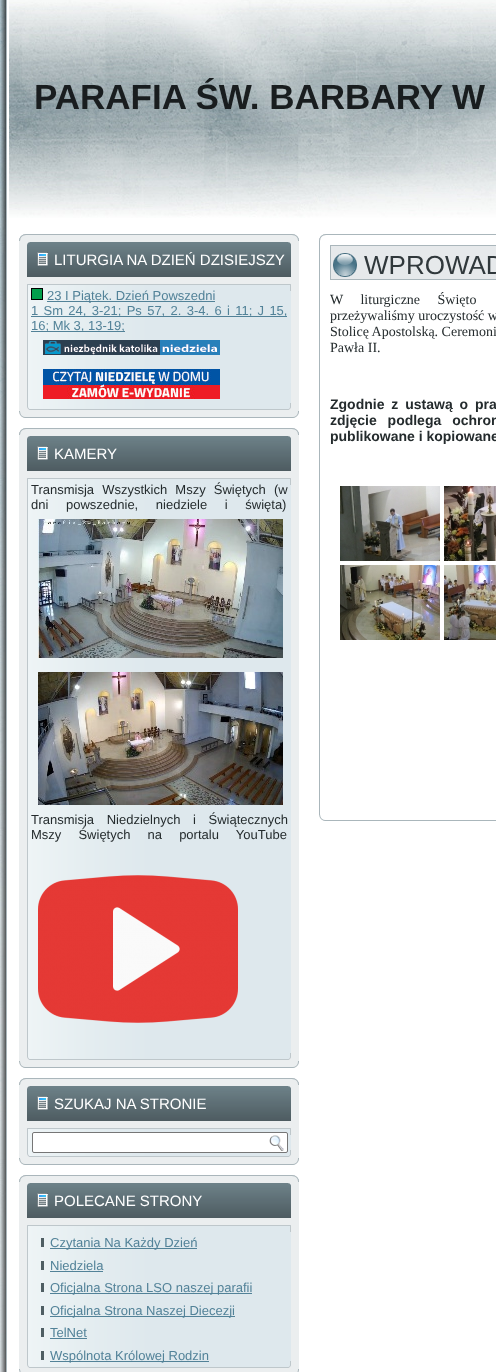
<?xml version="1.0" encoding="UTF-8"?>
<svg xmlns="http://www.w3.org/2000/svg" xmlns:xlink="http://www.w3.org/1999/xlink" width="496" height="1372">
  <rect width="100%" height="100%" fill="#ffffff" />
  <image x="0" y="983" width="6" height="389" xlink:href="image1.png" />
  <image x="0" y="0" width="6" height="983" xlink:href="image2.png" />
  <image x="0" y="0" width="496" height="1372" xlink:href="image3.png" />
  <image x="9" y="0" width="487" height="218" xlink:href="image4.png" />
  <image x="19" y="234" width="273" height="184" xlink:href="image5.png" />
  <image x="19" y="234" width="7" height="6" xlink:href="image6.png" />
  <rect x="19" y="241" width="280" height="170" fill="#ebeeef" />
  <image x="292" y="234" width="7" height="184" xlink:href="image7.png" />
  <image x="292" y="234" width="7" height="6" xlink:href="image8.png" />
  <image x="27" y="242" width="243" height="35" xlink:href="image9.png" />
  <image x="270" y="242" width="21" height="35" xlink:href="image10.png" />
  <image x="27" y="284" width="257" height="126" xlink:href="image11.png" />
  <rect x="27" y="284" width="1" height="1" fill="#c1cacf" />
  <rect x="284" y="291" width="7" height="112" fill="#dee8ed" />
  <image x="284" y="284" width="7" height="126" xlink:href="image12.png" />
  <rect x="290" y="284" width="1" height="1" fill="#c1cacd" />
  <image x="27" y="291" width="257" height="112" xlink:href="image15.png" />
  <rect x="47" y="301" width="168" height="1" fill="#528298" />
  <rect x="31.5" y="288.5" width="11" height="11" fill="none" stroke="#000000" />
  <rect x="32" y="289" width="10" height="10" fill="#029f4c" />
  <rect x="31" y="316" width="256" height="1" fill="#528298" />
  <rect x="31" y="331" width="94" height="1" fill="#528298" />
  <image x="43" y="340" width="177" height="15" xlink:href="image13.png" />
  <image x="43" y="369" width="177" height="30" xlink:href="image14.png" />
  <image x="19" y="428" width="273" height="640" xlink:href="image16.png" />
  <image x="19" y="428" width="7" height="6" xlink:href="image6.png" />
  <rect x="19" y="435" width="280" height="626" fill="#ebeeef" />
  <image x="292" y="428" width="7" height="640" xlink:href="image17.png" />
  <image x="292" y="428" width="7" height="6" xlink:href="image8.png" />
  <image x="27" y="436" width="243" height="35" xlink:href="image9.png" />
  <image x="270" y="436" width="21" height="35" xlink:href="image10.png" />
  <image x="27" y="478" width="257" height="582" xlink:href="image18.png" />
  <rect x="27" y="478" width="1" height="1" fill="#c1cacf" />
  <rect x="284" y="485" width="7" height="568" fill="#dee8ed" />
  <image x="284" y="478" width="7" height="582" xlink:href="image19.png" />
  <rect x="290" y="478" width="1" height="1" fill="#c1cacd" />
  <image x="27" y="485" width="257" height="568" xlink:href="image23.png" />
  <image x="38" y="519" width="245" height="139" xlink:href="image20.png" />
  <image x="38" y="672" width="245" height="133" xlink:href="image21.png" />
  <image x="38" y="875" width="200" height="148" xlink:href="image22.png" />
  <image x="19" y="1078" width="273" height="87" xlink:href="image24.png" />
  <image x="19" y="1078" width="7" height="6" xlink:href="image6.png" />
  <rect x="19" y="1085" width="280" height="73" fill="#ebeeef" />
  <image x="292" y="1078" width="7" height="87" xlink:href="image25.png" />
  <image x="292" y="1078" width="7" height="6" xlink:href="image8.png" />
  <image x="27" y="1086" width="243" height="35" xlink:href="image9.png" />
  <image x="270" y="1086" width="21" height="35" xlink:href="image10.png" />
  <image x="27" y="1128" width="257" height="29" xlink:href="image26.png" />
  <rect x="27" y="1128" width="1" height="1" fill="#c1cacf" />
  <rect x="288" y="1135" width="3" height="15" fill="#dee8ed" />
  <image x="284" y="1128" width="7" height="29" xlink:href="image27.png" />
  <rect x="290" y="1128" width="1" height="1" fill="#c1cacd" />
  <image x="27" y="1135" width="5" height="15" xlink:href="image28.png" />
  <rect x="32.5" y="1132.5" width="255" height="20" rx="1.5" fill="#ffffff" stroke="#767676" />
  <image x="269" y="1135" width="15" height="16" xlink:href="image29.png" />
  <image x="19" y="1175" width="273" height="197" xlink:href="image30.png" />
  <image x="19" y="1175" width="7" height="6" xlink:href="image6.png" />
  <rect x="19" y="1182" width="280" height="187" fill="#ebeeef" />
  <image x="292" y="1175" width="7" height="197" xlink:href="image31.png" />
  <image x="292" y="1175" width="7" height="6" xlink:href="image8.png" />
  <image x="27" y="1183" width="243" height="35" xlink:href="image9.png" />
  <image x="270" y="1183" width="21" height="35" xlink:href="image10.png" />
  <image x="27" y="1225" width="257" height="143" xlink:href="image32.png" />
  <rect x="27" y="1225" width="1" height="1" fill="#c1cacf" />
  <rect x="284" y="1232" width="7" height="129" fill="#dee8ed" />
  <image x="284" y="1225" width="7" height="143" xlink:href="image33.png" />
  <rect x="290" y="1225" width="1" height="1" fill="#c1cacd" />
  <image x="27" y="1232" width="257" height="129" xlink:href="image34.png" />
  <rect x="41" y="1238" width="3" height="9" fill="#4f5e63" />
  <rect x="50" y="1248" width="147" height="1" fill="#528298" />
  <rect x="41" y="1261" width="3" height="9" fill="#4f5e63" />
  <rect x="50" y="1271" width="53" height="1" fill="#528298" />
  <rect x="41" y="1283" width="3" height="9" fill="#4f5e63" />
  <rect x="50" y="1293" width="202" height="1" fill="#528298" />
  <rect x="41" y="1306" width="3" height="9" fill="#4f5e63" />
  <rect x="50" y="1316" width="185" height="1" fill="#528298" />
  <rect x="41" y="1328" width="3" height="9" fill="#4f5e63" />
  <rect x="50" y="1338" width="37" height="1" fill="#528298" />
  <rect x="41" y="1351" width="3" height="9" fill="#4f5e63" />
  <rect x="50" y="1361" width="159" height="1" fill="#528298" />
  <image x="319" y="234" width="177" height="587" xlink:href="image35.png" />
  <image x="319" y="234" width="7" height="6" xlink:href="image36.png" />
  <rect x="319" y="241" width="1" height="573" fill="#aab6bb" />
  <rect x="330.5" y="245.5" width="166" height="34" fill="#e6e9eb" stroke="#aab6bb" />
  <image x="333" y="253" width="24" height="24" xlink:href="image37.png" />
  <image x="340" y="486" width="100" height="75" xlink:href="image38.png" />
  <image x="444" y="486" width="52" height="75" xlink:href="image39.png" />
  <image x="340" y="565" width="100" height="75" xlink:href="image40.png" />
  <image x="444" y="565" width="52" height="75" xlink:href="image41.png" />
  <text x="34" y="109" style="font-family: Liberation Sans; font-size: 35px; font-weight: bold; fill: #191d1f">PARAFIA ŚW. BARBARY W</text>
  <text x="54" y="265" style="font-family: Liberation Sans; font-size: 15px; fill: #ffffff">LITURGIA NA DZIEŃ DZISIEJSZY</text>
  <text x="47" y="300" style="font-family: Liberation Sans; font-size: 13px; fill: #528298">23 I Piątek. Dzień Powszedni</text>
  <text x="31" y="315" word-spacing="1.7" style="font-family: Liberation Sans; font-size: 13px; fill: #528298">1 Sm 24, 3-21; Ps 57, 2. 3-4. 6 i 11; J 15,</text>
  <text x="31" y="330" style="font-family: Liberation Sans; font-size: 13px; fill: #528298">16; Mk 3, 13-19;</text>
  <text x="54" y="459" style="font-family: Liberation Sans; font-size: 15px; fill: #ffffff">KAMERY</text>
  <text x="31" y="494" word-spacing="4.5" style="font-family: Liberation Sans; font-size: 13px; fill: #242b2d">Transmisja Wszystkich Mszy Świętych (w</text>
  <text x="31" y="509" word-spacing="14" style="font-family: Liberation Sans; font-size: 13px; fill: #242b2d">dni powszednie, niedziele i święta)</text>
  <text x="31" y="824" word-spacing="9" style="font-family: Liberation Sans; font-size: 13px; fill: #242b2d">Transmisja Niedzielnych i Świątecznych</text>
  <text x="31" y="839" word-spacing="13.5" style="font-family: Liberation Sans; font-size: 13px; fill: #242b2d">Mszy Świętych na portalu YouTube</text>
  <text x="54" y="1109" style="font-family: Liberation Sans; font-size: 15px; fill: #ffffff">SZUKAJ NA STRONIE</text>
  <text x="54" y="1206" style="font-family: Liberation Sans; font-size: 15px; fill: #ffffff">POLECANE STRONY</text>
  <text x="50" y="1247" style="font-family: Liberation Sans; font-size: 13px; fill: #528298">Czytania Na Każdy Dzień</text>
  <text x="50" y="1270" style="font-family: Liberation Sans; font-size: 13px; fill: #528298">Niedziela</text>
  <text x="50" y="1292" style="font-family: Liberation Sans; font-size: 13px; fill: #528298">Oficjalna Strona LSO naszej parafii</text>
  <text x="50" y="1315" style="font-family: Liberation Sans; font-size: 13px; fill: #528298">Oficjalna Strona Naszej Diecezji</text>
  <text x="50" y="1337" style="font-family: Liberation Sans; font-size: 13px; fill: #528298">TelNet</text>
  <text x="50" y="1360" style="font-family: Liberation Sans; font-size: 13px; fill: #528298">Wspólnota Królowej Rodzin</text>
  <text x="364" y="274" style="font-family: Liberation Sans; font-size: 26px; fill: #30383b">WPROWAD</text>
  <text x="330" y="304" word-spacing="14" style="font-family: Liberation Serif; font-size: 14px; fill: #242b2d">W liturgiczne Święto</text>
  <text x="330" y="320" style="font-family: Liberation Serif; font-size: 14px; fill: #242b2d">przeżywaliśmy uroczystość w</text>
  <text x="330" y="336" style="font-family: Liberation Serif; font-size: 14px; fill: #242b2d">Stolicę Apostolską. Ceremoni</text>
  <text x="330" y="352" style="font-family: Liberation Serif; font-size: 14px; fill: #242b2d">Pawła II.</text>
  <text x="330" y="409" word-spacing="3" style="font-family: Liberation Sans; font-size: 14px; font-weight: bold; fill: #242b2d">Zgodnie z ustawą o pra</text>
  <text x="330" y="425" word-spacing="7" style="font-family: Liberation Sans; font-size: 14px; font-weight: bold; fill: #242b2d">zdjęcie podlega ochron</text>
  <text x="330" y="441" style="font-family: Liberation Sans; font-size: 14px; font-weight: bold; fill: #242b2d">publikowane i kopiowane</text>
</svg>
